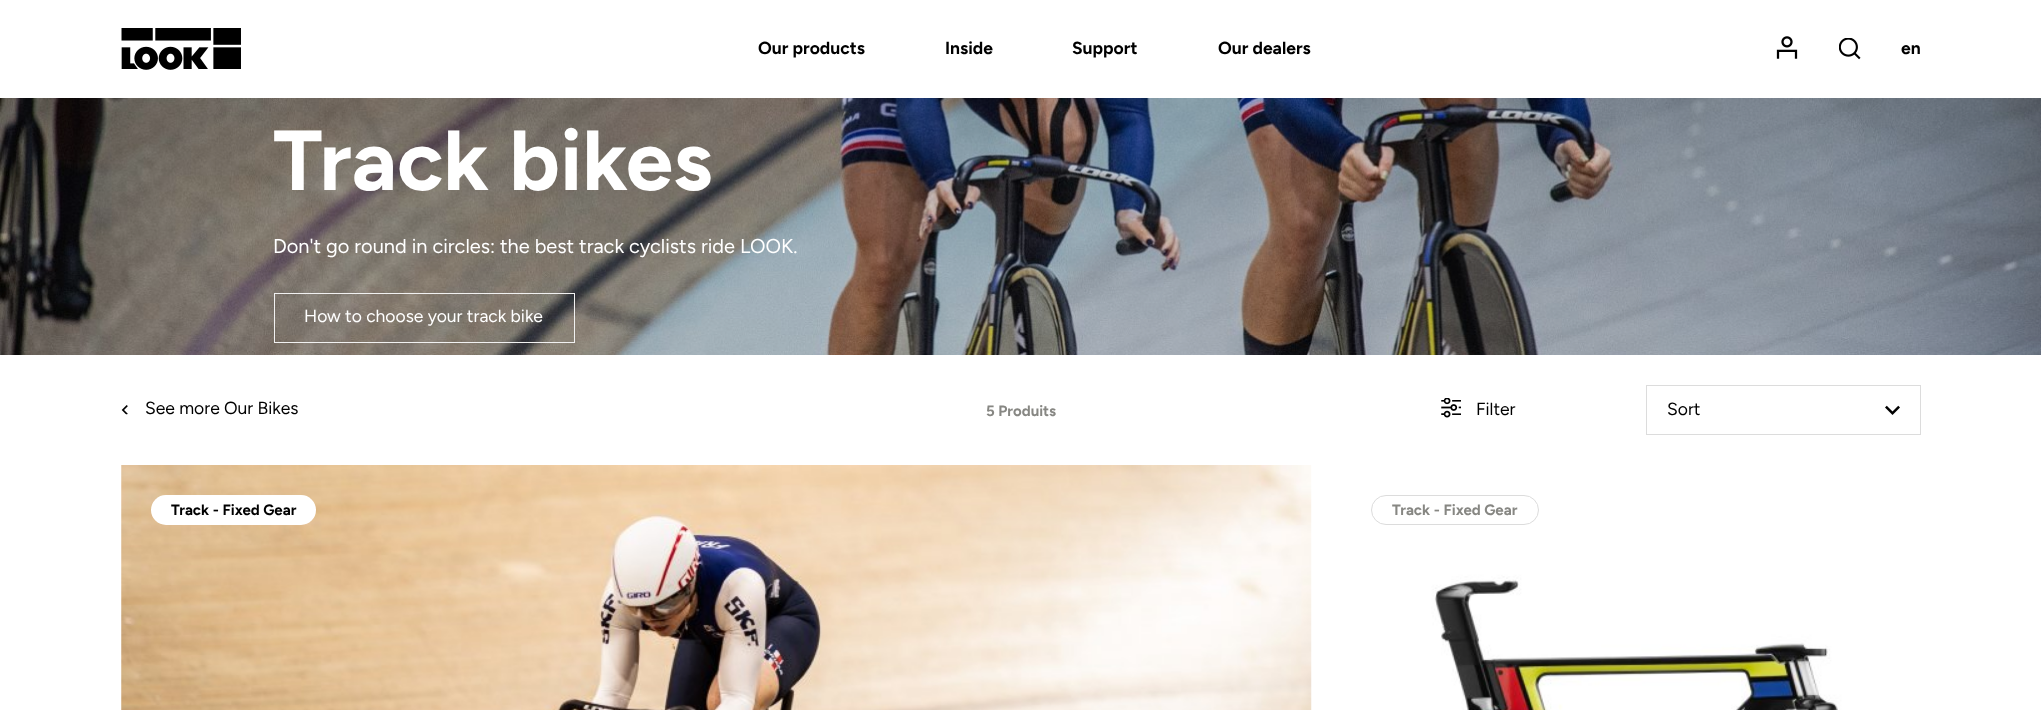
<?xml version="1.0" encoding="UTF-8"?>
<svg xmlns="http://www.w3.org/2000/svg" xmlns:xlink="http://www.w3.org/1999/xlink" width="2041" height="710">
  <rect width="100%" height="100%" fill="#ffffff" />
  <image x="121" y="28" width="120" height="42" xlink:href="image1.png" />
  <image x="1776" y="36" width="22" height="23" xlink:href="image2.png" />
  <image x="1839" y="38" width="22" height="22" xlink:href="image3.png" />
  <image x="0" y="98" width="2041" height="257" xlink:href="image4.png" />
  <rect x="274.5" y="293.5" width="300" height="49" fill="none" stroke="#f1f1f1" />
  <image x="121" y="405" width="7" height="10" xlink:href="image5.png" />
  <image x="1441" y="398" width="20" height="20" xlink:href="image6.png" />
  <rect x="1646.5" y="385.5" width="274" height="49" fill="none" stroke="#dcdcdc" />
  <image x="1885" y="405" width="15" height="10" xlink:href="image7.png" />
  <image x="121" y="465" width="1191" height="245" xlink:href="image8.png" />
  <rect x="151" y="495" width="165" height="30" rx="15" fill="#ffffff" />
  <image x="1341" y="465" width="580" height="245" xlink:href="image9.png" />
  <rect x="1371.5" y="495.5" width="167" height="29" rx="14.5" fill="none" stroke="#dcdcdc" />
  <text x="758" y="54" style="font-family: Figtree; font-size: 17.5px; font-weight: bold; fill: #000000">Our products</text>
  <text x="945" y="54" style="font-family: Figtree; font-size: 17.5px; font-weight: bold; fill: #000000">Inside</text>
  <text x="1072" y="54" style="font-family: Figtree; font-size: 17.5px; font-weight: bold; fill: #000000">Support</text>
  <text x="1218" y="54" style="font-family: Figtree; font-size: 17.5px; font-weight: bold; fill: #000000">Our dealers</text>
  <text x="1901" y="54" style="font-family: Figtree; font-size: 17.5px; font-weight: bold; fill: #000000">en</text>
  <text x="273" y="190" style="font-family: Figtree; font-size: 85px; font-weight: bold; fill: #ffffff">Track bikes</text>
  <text x="273" y="253" style="font-family: Figtree; font-size: 20px; fill: #ffffff">Don't go round in circles: the best track cyclists ride LOOK.</text>
  <text x="304" y="322" style="font-family: Figtree; font-size: 17.5px; fill: #ffffff">How to choose your track bike</text>
  <text x="145" y="414" style="font-family: Figtree; font-size: 17.5px; fill: #000000">See more Our Bikes</text>
  <text x="986" y="416" style="font-family: Figtree; font-size: 15px; font-weight: bold; fill: #878783">5 Produits</text>
  <text x="1476" y="415" style="font-family: Figtree; font-size: 17.5px; fill: #000000">Filter</text>
  <text x="1667" y="415" style="font-family: Figtree; font-size: 17.5px; fill: #000000">Sort</text>
  <text x="171" y="515" style="font-family: Figtree; font-size: 15px; font-weight: bold; fill: #000000">Track - Fixed Gear</text>
  <text x="1392" y="515" style="font-family: Figtree; font-size: 15px; font-weight: bold; fill: #878783">Track - Fixed Gear</text>
</svg>
